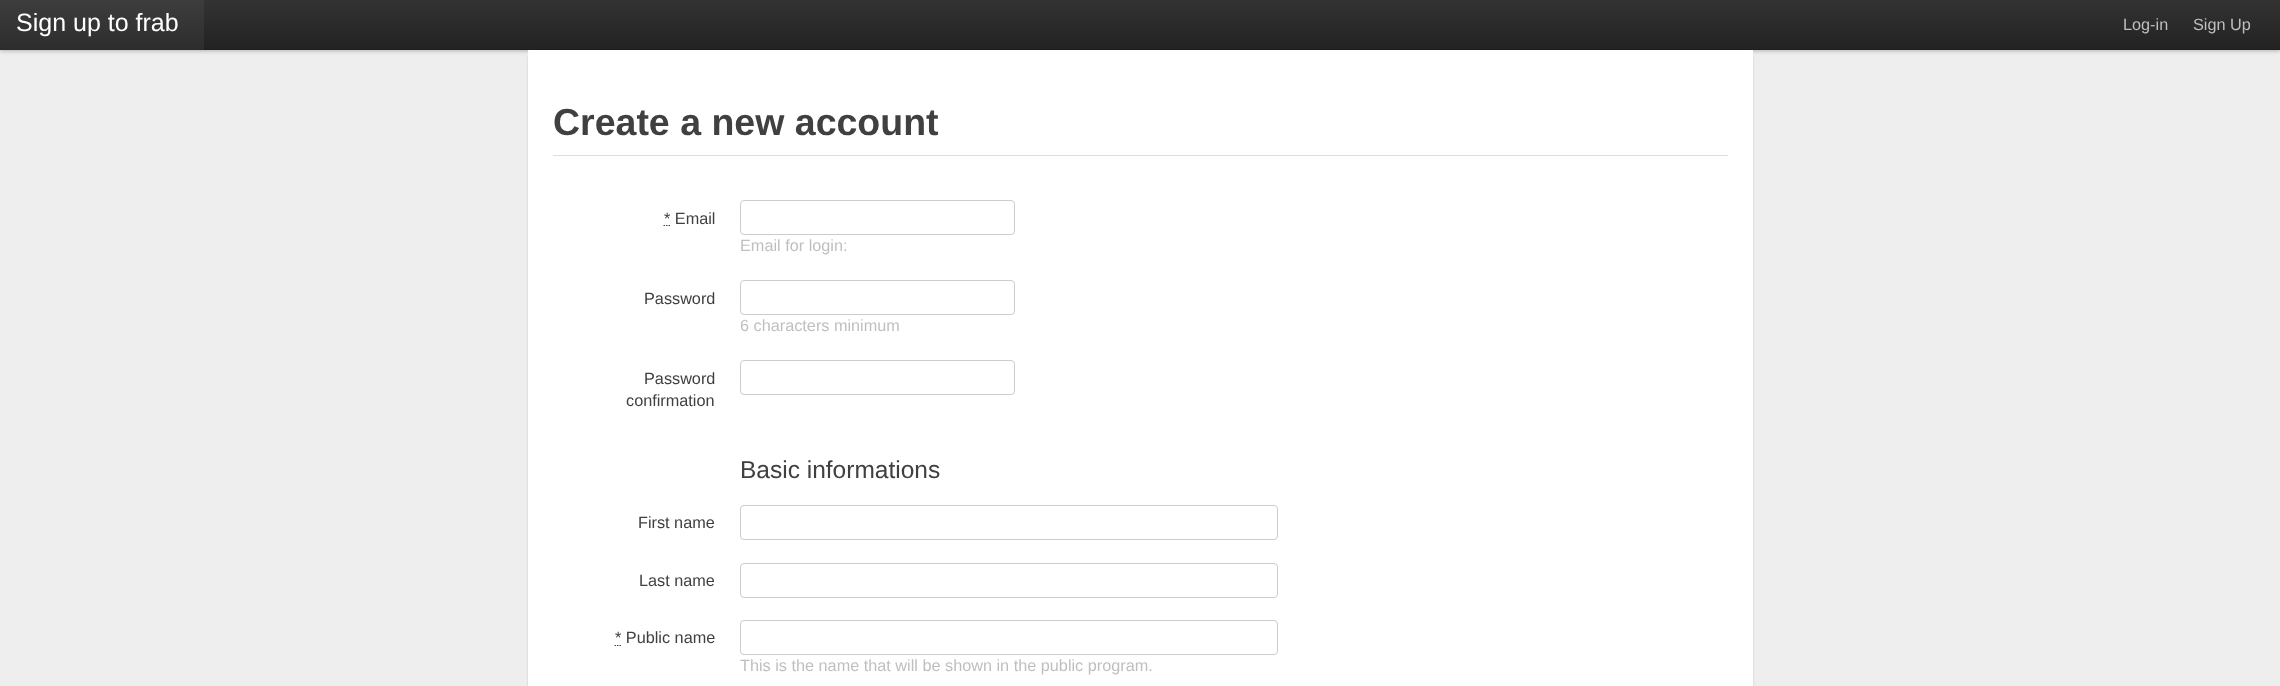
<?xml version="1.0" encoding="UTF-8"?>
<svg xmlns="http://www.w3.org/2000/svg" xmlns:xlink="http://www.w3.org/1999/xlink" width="2280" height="686">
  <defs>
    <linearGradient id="g1" gradientUnits="userSpaceOnUse" x1="1140" y1="0" x2="1140" y2="50"><stop offset="0" stop-color="#333333" /><stop offset="1" stop-color="#222222" /></linearGradient>
    <linearGradient id="g2" gradientUnits="userSpaceOnUse" x1="1140" y1="0" x2="1140" y2="50"><stop offset="0" stop-color="#3d3d3d" /><stop offset="1" stop-color="#2d2d2d" /></linearGradient>
  </defs>
  <rect width="100%" height="100%" fill="#eeeeee" />
  <rect y="1" width="2280" height="50" fill="#000000" fill-opacity="0.25" filter="blur(2px)" />
  <rect x="204" width="2076" height="49" fill="url(#g1)" />
  <rect width="204" height="49" fill="url(#g2)" />
  <rect x="204" y="49" width="2076" height="1" fill="#1f1f1f" />
  <rect y="49" width="204" height="1" fill="#2a2a2a" />
  <rect x="528" y="51" width="1225" height="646" rx="8" fill="#000000" fill-opacity="0.15" filter="blur(1px)" />
  <rect x="528" y="50" width="1225" height="636" fill="#ffffff" />
  <rect x="553" y="155" width="1175" height="1" fill="#dddddd" />
  <path d="M 663.5 225.5 h 1.5 m 1 0 h 1.5 m 1 0 h 1.5" fill="none" stroke="#404040" stroke-width="1.2" />
  <rect x="740.5" y="200.5" width="274" height="34" rx="3.5" fill="none" stroke="#cccccc" />
  <rect x="740.5" y="280.5" width="274" height="34" rx="3.5" fill="none" stroke="#cccccc" />
  <rect x="740.5" y="360.5" width="274" height="34" rx="3.5" fill="none" stroke="#cccccc" />
  <rect x="740.5" y="505.5" width="537" height="34" rx="3.5" fill="none" stroke="#cccccc" />
  <rect x="740.5" y="563.5" width="537" height="34" rx="3.5" fill="none" stroke="#cccccc" />
  <path d="M 614.5 645.5 h 1.5 m 1 0 h 1.5 m 1 0 h 1.5" fill="none" stroke="#404040" stroke-width="1.2" />
  <rect x="740.5" y="620.5" width="537" height="34" rx="3.5" fill="none" stroke="#cccccc" />
  <text x="16" y="31" style="font-family: Liberation Sans; font-size: 25px; fill: #ffffff">Sign up to frab</text>
  <text x="2123" y="30" style="font-family: Liberation Sans; font-size: 16.25px; fill: #bfbfbf">Log-in</text>
  <text x="2193" y="30" style="font-family: Liberation Sans; font-size: 16.25px; fill: #bfbfbf">Sign Up</text>
  <text x="553" y="135" style="font-family: Liberation Sans; font-size: 37.5px; font-weight: bold; fill: #404040">Create a new account</text>
  <text x="664" y="224" style="font-family: Liberation Sans; font-size: 16.25px; fill: #404040">* Email</text>
  <text x="740" y="251" style="font-family: Liberation Sans; font-size: 16.25px; fill: #bfbfbf">Email for login:</text>
  <text x="644" y="304" style="font-family: Liberation Sans; font-size: 16.25px; fill: #404040">Password</text>
  <text x="740" y="331" style="font-family: Liberation Sans; font-size: 16.25px; fill: #bfbfbf">6 characters minimum</text>
  <text x="644" y="384" style="font-family: Liberation Sans; font-size: 16.25px; fill: #404040">Password</text>
  <text x="626" y="406" style="font-family: Liberation Sans; font-size: 16.25px; fill: #404040">confirmation</text>
  <text x="740" y="478" style="font-family: Liberation Sans; font-size: 24.5px; fill: #404040">Basic informations</text>
  <text x="638" y="528" style="font-family: Liberation Sans; font-size: 16.25px; fill: #404040">First name</text>
  <text x="639" y="586" style="font-family: Liberation Sans; font-size: 16.25px; fill: #404040">Last name</text>
  <text x="615" y="643" style="font-family: Liberation Sans; font-size: 16.25px; fill: #404040">* Public name</text>
  <text x="740" y="671" style="font-family: Liberation Sans; font-size: 16.25px; fill: #bfbfbf">This is the name that will be shown in the public program.</text>
</svg>
